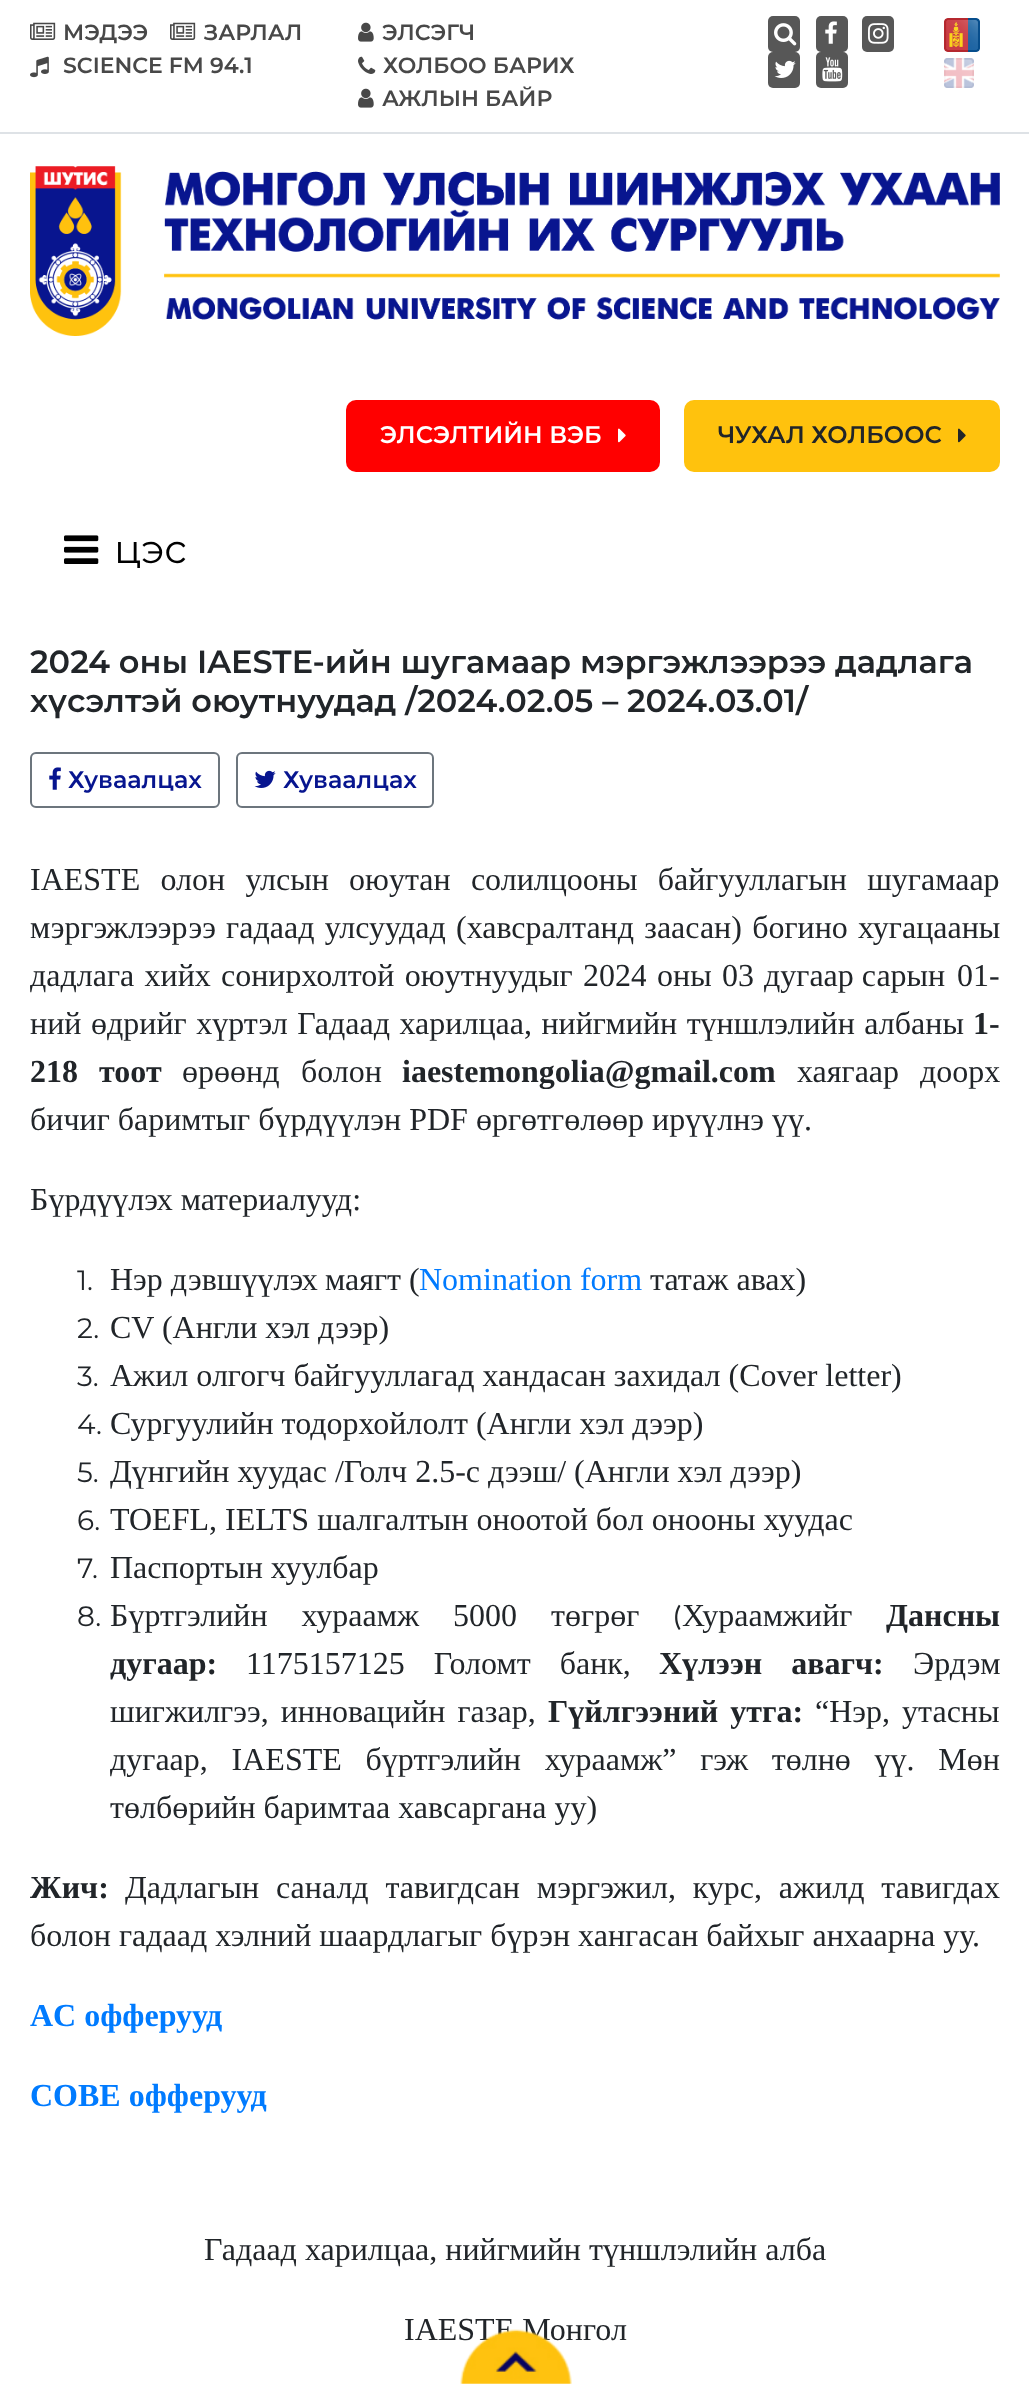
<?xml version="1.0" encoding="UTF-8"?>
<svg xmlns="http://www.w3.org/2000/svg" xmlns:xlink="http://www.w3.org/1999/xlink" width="1029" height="2384">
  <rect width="100%" height="100%" fill="#ffffff" />
  <rect y="132" width="1029" height="2" fill="#dee2e6" />
  <image x="30" y="22" width="26" height="18" xlink:href="image1.png" />
  <image x="170" y="22" width="26" height="18" xlink:href="image1.png" />
  <image x="30" y="56" width="19" height="22" xlink:href="image2.png" />
  <image x="358" y="22" width="16" height="20" xlink:href="image3.png" />
  <image x="358" y="56" width="18" height="18" xlink:href="image4.png" />
  <image x="358" y="88" width="16" height="20" xlink:href="image3.png" />
  <rect x="768" y="16" width="32" height="36" rx="5" fill="#575757" />
  <image x="774" y="23" width="23" height="23" xlink:href="image5.png" />
  <rect x="816" y="16" width="32" height="36" rx="5" fill="#575757" />
  <image x="825" y="21" width="12" height="23" xlink:href="image6.png" />
  <rect x="862" y="16" width="32" height="36" rx="5" fill="#575757" />
  <image x="868" y="23" width="21" height="21" xlink:href="image7.png" />
  <rect x="768" y="52" width="32" height="36" rx="5" fill="#575757" />
  <image x="774" y="60" width="22" height="18" xlink:href="image8.png" />
  <rect x="816" y="52" width="32" height="36" rx="5" fill="#575757" />
  <image x="822" y="57" width="21" height="25" xlink:href="image9.png" />
  <image x="944" y="18" width="36" height="34" xlink:href="image10.png" />
  <image x="944" y="58" width="30" height="30" xlink:href="image11.png" />
  <image x="30" y="166" width="970" height="170" xlink:href="image12.png" />
  <rect x="346" y="400" width="314" height="72" rx="10" fill="#ff0000" />
  <image x="618" y="428" width="8" height="15" xlink:href="image13.png" />
  <rect x="684" y="400" width="316" height="72" rx="10" fill="#ffc20d" />
  <image x="958" y="428" width="8" height="15" xlink:href="image14.png" />
  <image x="64" y="535" width="35" height="29" xlink:href="image15.png" />
  <rect x="31" y="753" width="188" height="54" rx="5" fill="none" stroke="#6c757d" stroke-width="2" />
  <image x="49" y="767" width="12" height="23" xlink:href="image16.png" />
  <rect x="237" y="753" width="196" height="54" rx="5" fill="none" stroke="#6c757d" stroke-width="2" />
  <image x="254" y="770" width="22" height="18" xlink:href="image17.png" />
  <text x="63" y="40" style="font-family: Montserrat; font-size: 22px; font-weight: 600; fill: #484848">МЭДЭЭ</text>
  <text x="204" y="40" style="font-family: Montserrat; font-size: 22px; font-weight: 600; fill: #484848">ЗАРЛАЛ</text>
  <text x="63" y="73" style="font-family: Montserrat; font-size: 22px; font-weight: 600; fill: #484848">SCIENCE FM 94.1</text>
  <text x="382" y="40" style="font-family: Montserrat; font-size: 22px; font-weight: 600; fill: #484848">ЭЛСЭГЧ</text>
  <text x="383" y="73" style="font-family: Montserrat; font-size: 22px; font-weight: 600; fill: #484848">ХОЛБОО БАРИХ</text>
  <text x="382" y="106" style="font-family: Montserrat; font-size: 22px; font-weight: 600; fill: #484848">АЖЛЫН БАЙР</text>
  <text x="380" y="443" style="font-family: Montserrat; font-size: 24px; font-weight: 600; fill: #ffffff">ЭЛСЭЛТИЙН ВЭБ</text>
  <text x="718" y="443" style="font-family: Montserrat; font-size: 24px; font-weight: 600; fill: #212529">ЧУХАЛ ХОЛБООС</text>
  <text x="114" y="563" style="font-family: Montserrat; font-size: 40px; fill: #000000">цэс</text>
  <text x="30" y="673" style="font-family: Montserrat; font-size: 32px; font-weight: 600; fill: #212529">2024 оны IAESTE-ийн шугамаар мэргэжлээрээ дадлага</text>
  <text x="30" y="712" style="font-family: Montserrat; font-size: 32px; font-weight: 600; fill: #212529">хүсэлтэй оюутнуудад /2024.02.05 – 2024.03.01/</text>
  <text x="68" y="788" style="font-family: Montserrat; font-size: 24px; font-weight: 600; fill: #07158f">Хуваалцах</text>
  <text x="283" y="788" style="font-family: Montserrat; font-size: 24px; font-weight: 600; fill: #07158f">Хуваалцах</text>
  <text x="30" y="890" word-spacing="12.25" style="font-family: Liberation Serif; font-size: 32px; fill: #212529">IAESTE олон улсын оюутан солилцооны байгууллагын шугамаар</text>
  <text x="30" y="938" word-spacing="2.25" style="font-family: Liberation Serif; font-size: 32px; fill: #212529">мэргэжлээрээ гадаад улсуудад (хавсралтанд заасан) богино хугацааны</text>
  <text x="30" y="986" word-spacing="2.25" style="font-family: Liberation Serif; font-size: 32px; fill: #212529">дадлага хийх сонирхолтой оюутнуудыг 202</text>
  <text x="631" y="986" style="font-family: Liberation Serif; font-size: 32px; fill: #212529">4</text>
  <rect x="646" y="979" width="1" height="3" fill="#ffffff" />
  <text x="657" y="986" style="font-family: Liberation Serif; font-size: 32px; fill: #212529">оны</text>
  <text x="722" y="986" style="font-family: Liberation Serif; font-size: 32px; fill: #212529">03</text>
  <text x="764" y="986" style="font-family: Liberation Serif; font-size: 32px; fill: #212529">дугаар сарын</text>
  <text x="957" y="986" style="font-family: Liberation Serif; font-size: 32px; fill: #212529">01-</text>
  <text x="30" y="1034" style="font-family: Liberation Serif; font-size: 32px; fill: #212529">ний</text>
  <text x="91" y="1034" word-spacing="1.5" style="font-family: Liberation Serif; font-size: 32px; fill: #212529">өдрийг хүртэл Гадаад харилцаа, нийгмийн түншлэлийн албаны</text>
  <text x="973" y="1034" style="font-family: Liberation Serif; font-size: 32px; font-weight: bold; fill: #212529">1-</text>
  <text x="30" y="1082" word-spacing="13" style="font-family: Liberation Serif; font-size: 32px; font-weight: bold; fill: #212529">218 тоот</text>
  <text x="182" y="1082" style="font-family: Liberation Serif; font-size: 32px; fill: #212529">өрөөнд</text>
  <text x="301" y="1082" style="font-family: Liberation Serif; font-size: 32px; fill: #212529">болон</text>
  <text x="402" y="1082" style="font-family: Liberation Serif; font-size: 32px; font-weight: bold; fill: #212529">iaestemongolia@gmail.com</text>
  <text x="797" y="1082" word-spacing="13" style="font-family: Liberation Serif; font-size: 32px; fill: #212529">хаягаар доорх</text>
  <text x="30" y="1130" style="font-family: Liberation Serif; font-size: 32px; fill: #212529">бичиг баримтыг бүрдүүлэн PDF өргөтгөлөөр ирүүлнэ үү.</text>
  <text x="30" y="1210" style="font-family: Liberation Serif; font-size: 32px; fill: #212529">Бүрдүүлэх материалууд:</text>
  <text x="77" y="1290" style="font-family: Montserrat; font-size: 28px; fill: #212529">1.</text>
  <text x="110" y="1290" style="font-family: Liberation Serif; font-size: 32px; fill: #212529">Нэр дэвшүүлэх</text>
  <text x="325" y="1290" style="font-family: Liberation Serif; font-size: 32px; fill: #212529">маягт (</text>
  <text x="419" y="1290" style="font-family: Liberation Serif; font-size: 32px; fill: #007bff">Nomination form</text>
  <text x="650" y="1290" style="font-family: Liberation Serif; font-size: 32px; fill: #212529">татаж авах)</text>
  <text x="77" y="1338" style="font-family: Montserrat; font-size: 28px; fill: #212529">2.</text>
  <text x="110" y="1338" style="font-family: Liberation Serif; font-size: 32px; fill: #212529">CV (Англи хэл дээр)</text>
  <text x="77" y="1386" style="font-family: Montserrat; font-size: 28px; fill: #212529">3.</text>
  <text x="110" y="1386" style="font-family: Liberation Serif; font-size: 32px; fill: #212529">Ажил олгогч байгууллагад хандасан захидал (Cover letter)</text>
  <text x="77" y="1434" style="font-family: Montserrat; font-size: 28px; fill: #212529">4.</text>
  <text x="110" y="1434" style="font-family: Liberation Serif; font-size: 32px; fill: #212529">Сургуулийн тодорхойлолт (Англи хэл дээр)</text>
  <text x="77" y="1482" style="font-family: Montserrat; font-size: 28px; fill: #212529">5.</text>
  <text x="110" y="1482" style="font-family: Liberation Serif; font-size: 32px; fill: #212529">Дүнгийн хуудас /Голч 2.5-с дээш/ (Англи хэл дээр)</text>
  <text x="77" y="1530" style="font-family: Montserrat; font-size: 28px; fill: #212529">6.</text>
  <text x="110" y="1530" style="font-family: Liberation Serif; font-size: 32px; fill: #212529">TOEFL, IELTS шалгалтын оноотой бол онооны хуудас</text>
  <text x="77" y="1578" style="font-family: Montserrat; font-size: 28px; fill: #212529">7.</text>
  <text x="110" y="1578" style="font-family: Liberation Serif; font-size: 32px; fill: #212529">Паспортын хуулбар</text>
  <text x="77" y="1626" style="font-family: Montserrat; font-size: 28px; fill: #212529">8.</text>
  <text x="110" y="1626" word-spacing="26" style="font-family: Liberation Serif; font-size: 32px; fill: #212529">Бүртгэлийн хураамж 5000 төгрөг</text>
  <text x="673" y="1626" style="font-family: Carlito; font-size: 29px; fill: #212529">(</text>
  <text x="682" y="1626" style="font-family: Liberation Serif; font-size: 32px; fill: #212529">Хураамжийг</text>
  <text x="886" y="1626" style="font-family: Liberation Serif; font-size: 32px; font-weight: bold; fill: #212529">Дансны</text>
  <text x="110" y="1674" style="font-family: Liberation Serif; font-size: 32px; font-weight: bold; fill: #212529">дугаар:</text>
  <text x="246" y="1674" word-spacing="21" style="font-family: Liberation Serif; font-size: 32px; fill: #212529">1175157125 Голомт банк,</text>
  <text x="659" y="1674" word-spacing="21" style="font-family: Liberation Serif; font-size: 32px; font-weight: bold; fill: #212529">Хүлээн авагч:</text>
  <text x="913" y="1674" style="font-family: Liberation Serif; font-size: 32px; fill: #212529">Эрдэм</text>
  <text x="110" y="1722" word-spacing="4" style="font-family: Liberation Serif; font-size: 32px; fill: #212529">шигжилгээ, инновацийн газар,</text>
  <text x="548" y="1722" word-spacing="4" style="font-family: Liberation Serif; font-size: 32px; font-weight: bold; fill: #212529">Гүйлгээний утга:</text>
  <text x="815" y="1722" word-spacing="4" style="font-family: Liberation Serif; font-size: 32px; fill: #212529">“Нэр, утасны</text>
  <text x="110" y="1770" word-spacing="15.75" style="font-family: Liberation Serif; font-size: 32px; fill: #212529">дугаар, IAESTE бүртгэлийн хураамж” гэж төлнө үү. Мөн</text>
  <text x="110" y="1818" style="font-family: Liberation Serif; font-size: 32px; fill: #212529">төлбөрийн баримтаа хавсаргана уу)</text>
  <text x="30" y="1898" style="font-family: Liberation Serif; font-size: 32px; font-weight: bold; fill: #212529">Жич:</text>
  <text x="125" y="1898" word-spacing="8.75" style="font-family: Liberation Serif; font-size: 32px; fill: #212529">Дадлагын саналд тавигдсан мэргэжил, курс, ажилд тавигдах</text>
  <text x="30" y="1946" style="font-family: Liberation Serif; font-size: 32px; fill: #212529">болон гадаад хэлний шаардлагыг бүрэн хангасан байхыг анхаарна уу.</text>
  <text x="30" y="2026" style="font-family: Liberation Serif; font-size: 32px; font-weight: bold; fill: #007bff">AC офферууд</text>
  <text x="30" y="2106" style="font-family: Liberation Serif; font-size: 32px; font-weight: bold; fill: #007bff">COBE офферууд</text>
  <text x="204" y="2260" style="font-family: Liberation Serif; font-size: 32px; fill: #212529">Гадаад харилцаа, нийгмийн түншлэлийн алба</text>
  <text x="404" y="2340" style="font-family: Liberation Serif; font-size: 32px; fill: #212529">IAESTE Монгол</text>
  <image x="460" y="2329" width="112" height="55" xlink:href="image18.png" />
</svg>
